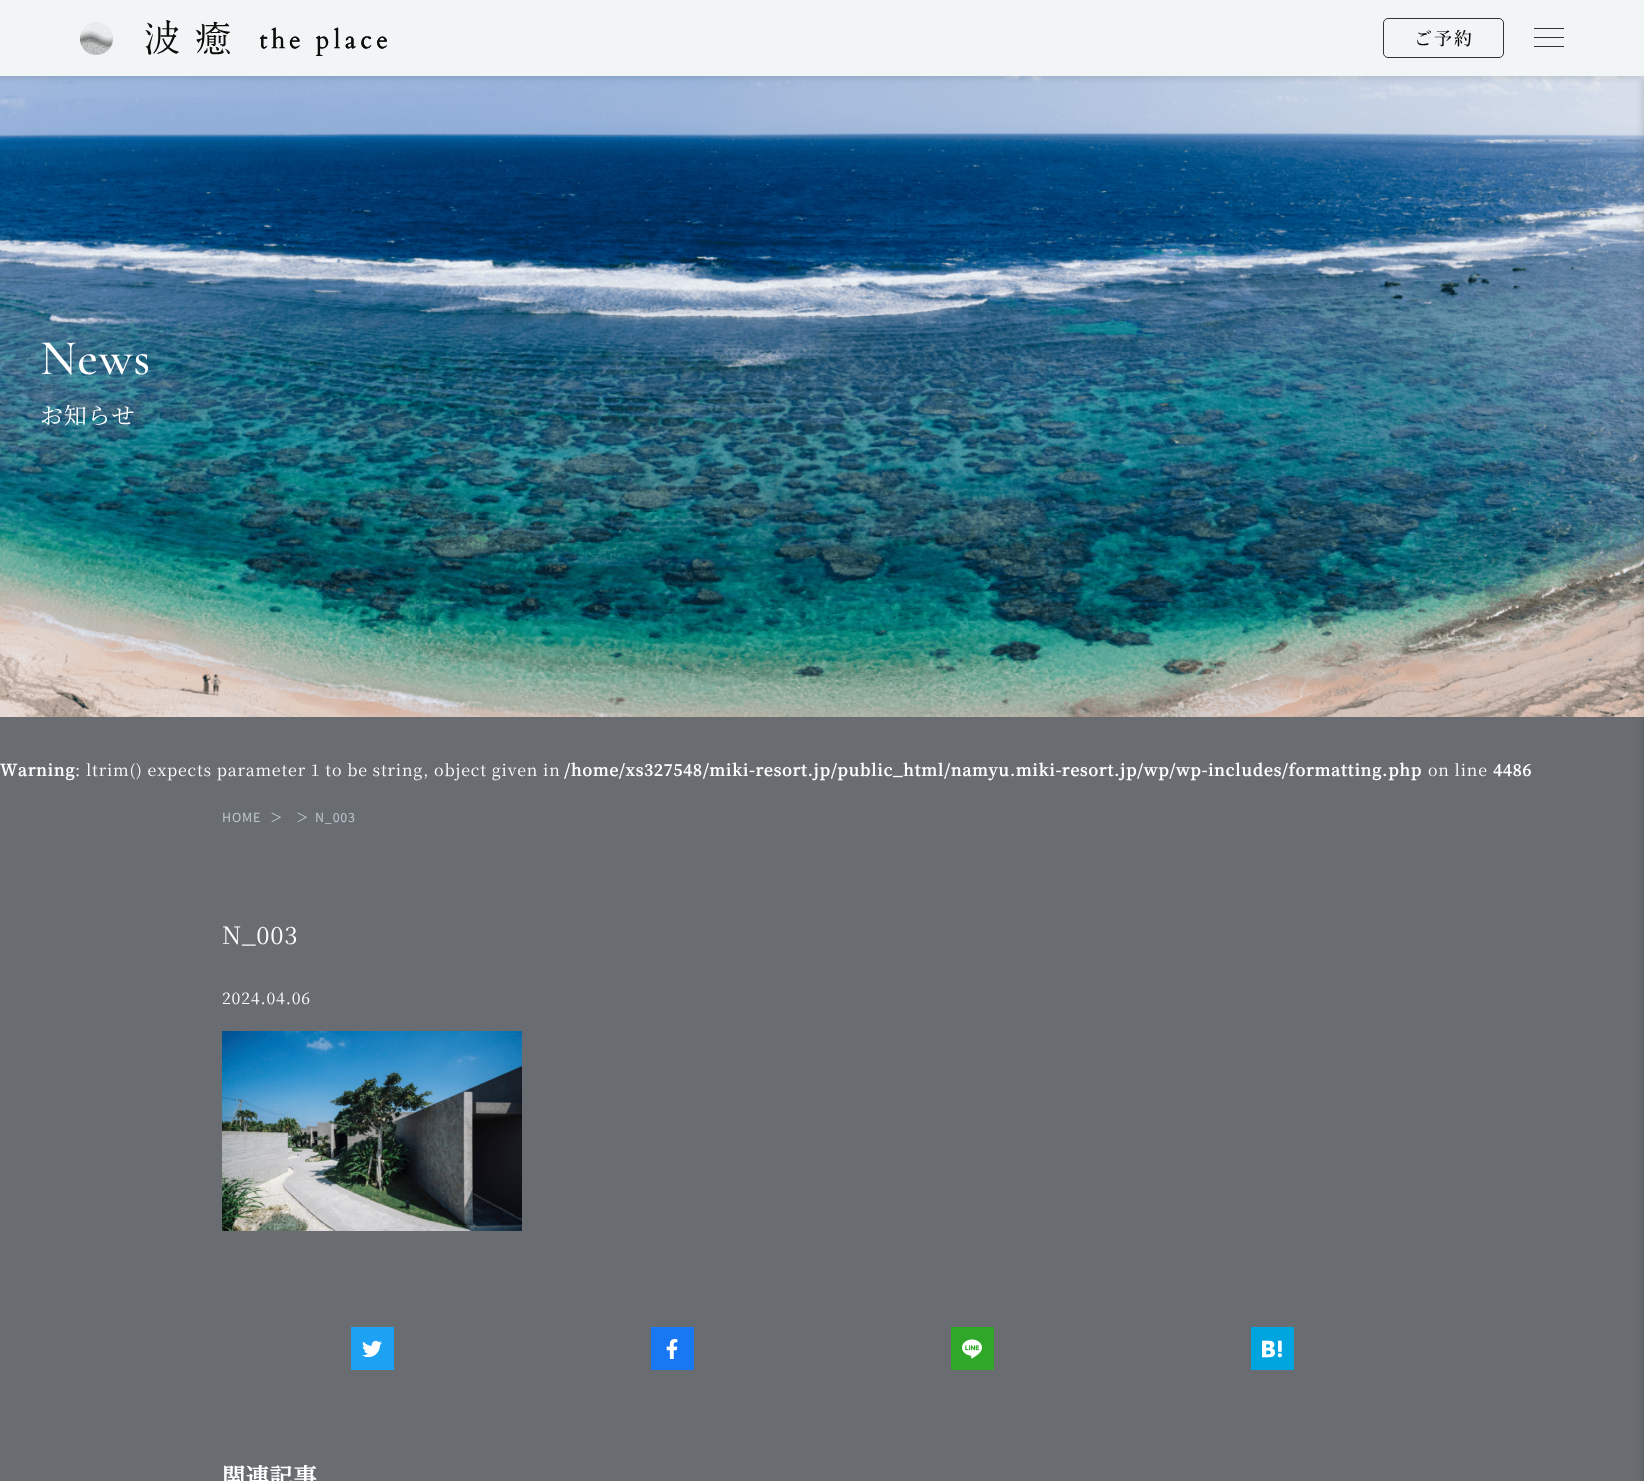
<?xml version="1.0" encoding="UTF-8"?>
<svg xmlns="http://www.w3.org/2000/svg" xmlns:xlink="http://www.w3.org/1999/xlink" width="1644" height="1481">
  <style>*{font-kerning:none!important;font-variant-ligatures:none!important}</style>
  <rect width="100%" height="100%" fill="#696d72" />
  <image x="0" y="76" width="1644" height="641" xlink:href="image2.png" />
  <rect x="-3" y="3" width="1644" height="76" fill="#141414" fill-opacity="0.1" filter="blur(2.5px)" />
  <rect width="1644" height="76" fill="#f2f5f6" />
  <image x="80" y="20" width="307" height="36" xlink:href="image1.png" />
  <rect x="1383.5" y="18.5" width="120" height="39" rx="4.5" fill="none" stroke="#333333" />
  <rect x="1534" y="28" width="30" height="1" fill="#333333" />
  <rect x="1534" y="37" width="30" height="1" fill="#333333" />
  <rect x="1534" y="46" width="30" height="1" fill="#333333" />
  <rect x="1641" y="79" width="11" height="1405" fill="#141414" fill-opacity="0.1" filter="blur(2.5px)" />
  <image x="222" y="1031" width="300" height="200" xlink:href="image3.png" />
  <rect x="351" y="1327" width="43" height="43" fill="#1da1f2" />
  <image x="362" y="1340" width="20" height="18" xlink:href="image4.png" />
  <rect x="651" y="1327" width="43" height="43" fill="#1877f2" />
  <image x="666" y="1339" width="12" height="20" xlink:href="image5.png" />
  <rect x="951" y="1327" width="43" height="43" fill="#2fa829" />
  <image x="962" y="1339" width="20" height="20" xlink:href="image6.png" />
  <rect x="1251" y="1327" width="43" height="43" fill="#00a4de" />
  <image x="1262" y="1340" width="20" height="18" xlink:href="image7.png" />
  <text x="1414" y="45" style="font-family: Noto Serif JP; font-size: 18px; font-weight: 500; letter-spacing: 2px; fill: #000000">ご予約</text>
  <text x="40" y="374" style="font-family: Cormorant Garamond; font-size: 50px; font-weight: 500; letter-spacing: 0.8px; fill: #ffffff">News</text>
  <text x="40" y="424" style="font-family: Noto Serif JP; font-size: 23px; letter-spacing: 0.8px; fill: #ffffff">お知らせ</text>
  <text x="0" y="776" style="font-family: Noto Serif JP; font-size: 16px; font-weight: bold; letter-spacing: 0.8px; fill: #ffffff">Warning</text>
  <text x="75" y="776" style="font-family: Noto Serif JP; font-size: 16px; letter-spacing: 0.8px; fill: #ffffff">: ltrim() expects parameter 1 to be string, object given in</text>
  <text x="564" y="776" style="font-family: Noto Serif JP; font-size: 16px; font-weight: bold; letter-spacing: 0.8px; fill: #ffffff">/home/xs327548/miki-resort.jp/public_html/namyu.miki-resort.jp/wp/wp-includes/formatting.php</text>
  <text x="1428" y="776" style="font-family: Noto Serif JP; font-size: 16px; letter-spacing: 0.8px; fill: #ffffff">on line</text>
  <text x="1493" y="776" style="font-family: Noto Serif JP; font-size: 16px; font-weight: bold; letter-spacing: 0.8px; fill: #ffffff">4486</text>
  <text x="222" y="822" style="font-family: Noto Sans JP; font-size: 12.5px; font-weight: 100; letter-spacing: 0.8px; fill: #bbc7ce">HOME</text>
  <text x="270" y="822" style="font-family: Noto Sans JP; font-size: 12.5px; font-weight: 100; letter-spacing: 0.8px; fill: #bbc7ce">＞</text>
  <text x="296" y="822" style="font-family: Noto Sans JP; font-size: 12.5px; font-weight: 100; letter-spacing: 0.8px; fill: #bbc7ce">＞</text>
  <text x="315" y="822" style="font-family: Noto Sans JP; font-size: 12.5px; font-weight: 100; letter-spacing: 0.8px; fill: #bbc7ce">N_003</text>
  <text x="222" y="944" style="font-family: Noto Serif JP; font-size: 24px; letter-spacing: 0.8px; fill: #ffffff">N_003</text>
  <text x="222" y="1004" style="font-family: Noto Serif JP; font-size: 16px; letter-spacing: 0.8px; fill: #ffffff">2024.04.06</text>
  <text x="222" y="1485" style="font-family: Noto Serif JP; font-size: 23px; font-weight: bold; letter-spacing: 0.8px; fill: #ffffff">関連記事</text>
</svg>
